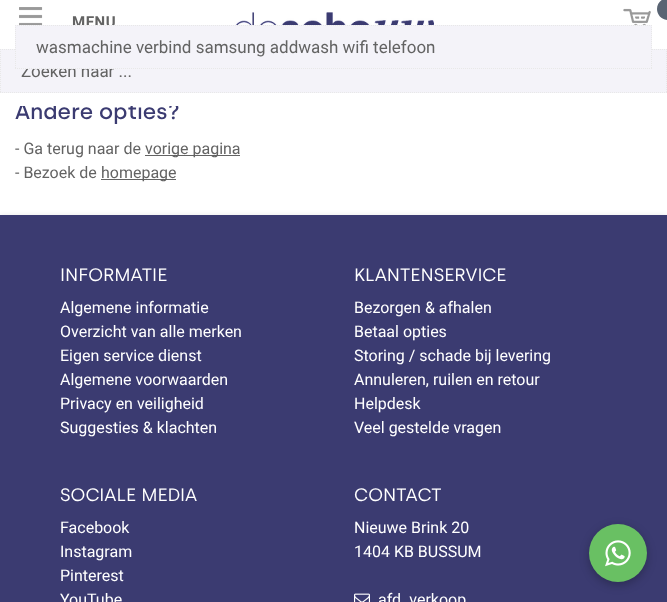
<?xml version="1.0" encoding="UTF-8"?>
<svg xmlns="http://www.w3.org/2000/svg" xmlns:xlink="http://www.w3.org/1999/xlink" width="667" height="602">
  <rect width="100%" height="100%" fill="#ffffff" />
  <image x="19" y="7" width="24" height="18" xlink:href="image1.png" />
  <image x="623" y="8" width="28" height="17" xlink:href="image2.png" />
  <path d="M 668 -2 h -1 v 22 h 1 c -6 0 -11 -5 -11 -11 c 0 -6 5 -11 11 -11 z" fill="#596473" />
  <image x="234" y="12" width="200" height="13" xlink:href="image3.png" />
  <rect y="49" width="667" height="44" fill="#f4f3f9" />
  <path d="M 0 49.5 h 667" fill="none" stroke="#e8e8e8" stroke-dasharray="1 1" />
  <path d="M 666.5 49 v 44" fill="none" stroke="#e8e8e8" stroke-dasharray="1 1" />
  <path d="M 0 92.5 h 667" fill="none" stroke="#e8e8e8" stroke-dasharray="1 1" />
  <path d="M 0.5 49 v 44" fill="none" stroke="#e8e8e8" stroke-dasharray="1 1" />
  <rect x="145" y="155" width="95" height="1" fill="#636363" />
  <rect x="101" y="179" width="75" height="1" fill="#636363" />
  <rect y="215" width="667" height="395" fill="#323232" fill-opacity="0.12" filter="blur(2.5px)" />
  <rect y="215" width="667" height="387" fill="#3b3b71" />
  <image x="354" y="593" width="16" height="9" xlink:href="image4.png" />
  <rect x="589" y="527" width="58" height="58" rx="29" fill="#000000" fill-opacity="0.25" filter="blur(5px)" />
  <circle cx="618" cy="553" r="29" fill="#69c063" />
  <image x="605" y="540" width="26" height="27" xlink:href="image5.png" />
  <text x="72" y="27" style="font-family: Roboto; font-size: 15px; font-weight: bold; letter-spacing: 0.5px; fill: #636363">MENU</text>
  <text x="21" y="77" style="font-family: Roboto; font-size: 17px; fill: #636363">Zoeken naar ...</text>
  <rect x="15" y="25" width="637" height="44" fill="#f4f3f9" />
  <path d="M 15 25.5 h 637" fill="none" stroke="#e8e8e8" stroke-dasharray="1 1" />
  <path d="M 651.5 25 v 44" fill="none" stroke="#e8e8e8" stroke-dasharray="1 1" />
  <path d="M 15 68.5 h 637" fill="none" stroke="#e8e8e8" stroke-dasharray="1 1" />
  <path d="M 15.5 25 v 44" fill="none" stroke="#e8e8e8" stroke-dasharray="1 1" />
  <text x="36" y="53" style="font-family: Roboto; font-size: 17px; fill: #636363">wasmachine verbind samsung addwash wifi telefoon</text>
  <text x="15" y="119" style="font-family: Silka; font-size: 22px; font-weight: 500; fill: #3b3b71">Andere opties?</text>
  <rect x="20" y="102" width="158" height="4" fill="#ffffff" />
  <text x="15" y="154" style="font-family: Roboto; font-size: 16px; fill: #636363">- Ga terug naar de</text>
  <text x="145" y="154" style="font-family: Roboto; font-size: 16px; fill: #636363">vorige pagina</text>
  <text x="15" y="178" style="font-family: Roboto; font-size: 16px; fill: #636363">- Bezoek de</text>
  <text x="101" y="178" style="font-family: Roboto; font-size: 16px; fill: #636363">homepage</text>
  <text x="60" y="281" style="font-family: Silka; font-size: 18px; fill: #ffffff">INFORMATIE</text>
  <text x="60" y="313" style="font-family: Roboto; font-size: 16px; fill: #ffffff">Algemene informatie</text>
  <text x="60" y="337" style="font-family: Roboto; font-size: 16px; fill: #ffffff">Overzicht van alle merken</text>
  <text x="60" y="361" style="font-family: Roboto; font-size: 16px; fill: #ffffff">Eigen service dienst</text>
  <text x="60" y="385" style="font-family: Roboto; font-size: 16px; fill: #ffffff">Algemene voorwaarden</text>
  <text x="60" y="409" style="font-family: Roboto; font-size: 16px; fill: #ffffff">Privacy en veiligheid</text>
  <text x="60" y="433" style="font-family: Roboto; font-size: 16px; fill: #ffffff">Suggesties &amp; klachten</text>
  <text x="354" y="281" style="font-family: Silka; font-size: 18px; fill: #ffffff">KLANTENSERVICE</text>
  <text x="354" y="313" style="font-family: Roboto; font-size: 16px; fill: #ffffff">Bezorgen &amp; afhalen</text>
  <text x="354" y="337" style="font-family: Roboto; font-size: 16px; fill: #ffffff">Betaal opties</text>
  <text x="354" y="361" style="font-family: Roboto; font-size: 16px; fill: #ffffff">Storing / schade bij levering</text>
  <text x="354" y="385" style="font-family: Roboto; font-size: 16px; fill: #ffffff">Annuleren, ruilen en retour</text>
  <text x="354" y="409" style="font-family: Roboto; font-size: 16px; fill: #ffffff">Helpdesk</text>
  <text x="354" y="433" style="font-family: Roboto; font-size: 16px; fill: #ffffff">Veel gestelde vragen</text>
  <text x="60" y="501" style="font-family: Silka; font-size: 18px; fill: #ffffff">SOCIALE MEDIA</text>
  <text x="60" y="533" style="font-family: Roboto; font-size: 16px; fill: #ffffff">Facebook</text>
  <text x="60" y="557" style="font-family: Roboto; font-size: 16px; fill: #ffffff">Instagram</text>
  <text x="60" y="581" style="font-family: Roboto; font-size: 16px; fill: #ffffff">Pinterest</text>
  <text x="60" y="605" style="font-family: Roboto; font-size: 16px; fill: #ffffff">YouTube</text>
  <text x="354" y="501" style="font-family: Silka; font-size: 18px; fill: #ffffff">CONTACT</text>
  <text x="354" y="533" style="font-family: Roboto; font-size: 16px; fill: #ffffff">Nieuwe Brink 20</text>
  <text x="354" y="557" style="font-family: Roboto; font-size: 16px; fill: #ffffff">1404 KB BUSSUM</text>
  <text x="378" y="605" style="font-family: Roboto; font-size: 16px; fill: #ffffff">afd. verkoop</text>
</svg>
